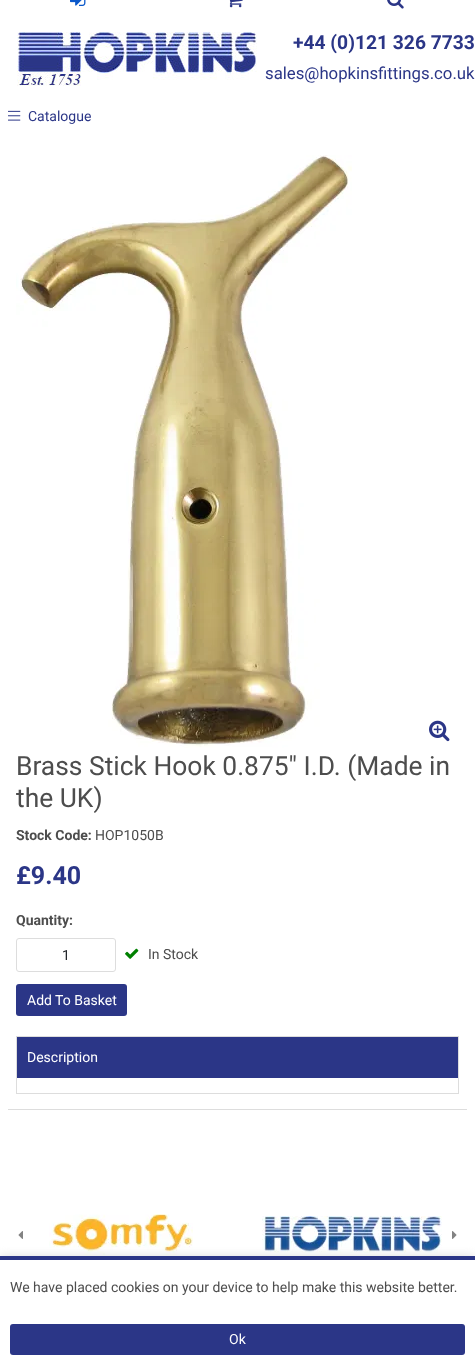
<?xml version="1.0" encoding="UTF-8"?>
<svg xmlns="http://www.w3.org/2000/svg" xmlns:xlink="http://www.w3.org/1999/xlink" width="475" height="1365">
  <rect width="100%" height="100%" fill="#ffffff" />
  <image x="70" y="0" width="16" height="6" xlink:href="image1.png" />
  <image x="229" y="0" width="14" height="8" xlink:href="image2.png" />
  <image x="387" y="0" width="17" height="9" xlink:href="image3.png" />
  <image x="17" y="32" width="240" height="54" xlink:href="image4.png" />
  <image x="8" y="110" width="13" height="11" xlink:href="image5.png" />
  <image x="16" y="155" width="336" height="593" xlink:href="image6.png" />
  <image x="429" y="720" width="21" height="22" xlink:href="image7.png" />
  <rect x="16.5" y="938.5" width="99" height="33" rx="2.5" fill="none" stroke="#dddddd" />
  <image x="125" y="948" width="14" height="11" xlink:href="image8.png" />
  <rect x="16" y="984" width="111" height="32" rx="3" fill="#2b3687" />
  <rect x="16.5" y="1036.5" width="442" height="57" fill="none" stroke="#dddddd" />
  <rect x="17" y="1037" width="441" height="41" fill="#2b3687" />
  <rect x="8" y="1109" width="459" height="1" fill="#dddddd" />
  <image x="49" y="1214" width="144" height="41" xlink:href="image9.png" />
  <image x="262" y="1216" width="180" height="37" xlink:href="image10.png" />
  <image x="18" y="1231" width="5" height="8" xlink:href="image11.png" />
  <image x="452" y="1231" width="5" height="8" xlink:href="image12.png" />
  <rect y="1256" width="475" height="109" fill="#dddddd" filter="blur(5px)" />
  <rect y="1260" width="475" height="105" fill="#ffffff" />
  <rect y="1256" width="475" height="4" fill="#2b3687" />
  <rect x="10" y="1324" width="455" height="31" rx="3" fill="#2b3687" />
  <text x="293" y="49" style="font-family: Roboto; font-size: 19.25px; font-weight: bold; fill: #2b3687">+44 (0)121 326 7733</text>
  <text x="265" y="79" style="font-family: Roboto; font-size: 16.75px; fill: #2b3687">sales@hopkinsfittings.co.uk</text>
  <text x="28" y="121" style="font-family: Roboto; font-size: 14px; fill: #2b3687">Catalogue</text>
  <text x="16" y="775" style="font-family: Roboto; font-size: 26.4px; fill: #4d4d4d">Brass Stick Hook 0.875" I.D. (Made in</text>
  <text x="16" y="807" style="font-family: Roboto; font-size: 26.4px; fill: #4d4d4d">the UK)</text>
  <text x="16" y="840" style="font-family: Roboto; font-size: 14px; font-weight: bold; fill: #4d4d4d">Stock Code:</text>
  <text x="95" y="840" style="font-family: Roboto; font-size: 14px; fill: #4d4d4d">HOP1050B</text>
  <text x="16" y="884" style="font-family: Roboto; font-size: 25px; font-weight: bold; fill: #2b3687">£9.40</text>
  <text x="16" y="925" style="font-family: Roboto; font-size: 14px; font-weight: bold; fill: #4d4d4d">Quantity:</text>
  <text x="62" y="960" style="font-family: Roboto; font-size: 14px; fill: #212529">1</text>
  <text x="148" y="959" style="font-family: Roboto; font-size: 14px; fill: #4d4d4d">In Stock</text>
  <text x="27" y="1005" style="font-family: Roboto; font-size: 14px; fill: #ffffff">Add To Basket</text>
  <text x="27" y="1062" style="font-family: Roboto; font-size: 14px; fill: #ffffff">Description</text>
  <text x="10" y="1292" style="font-family: Roboto; font-size: 14px; fill: #4d4d4d">We have placed cookies on your device to help make this website better.</text>
  <text x="229" y="1344" style="font-family: Roboto; font-size: 14px; fill: #ffffff">Ok</text>
</svg>
